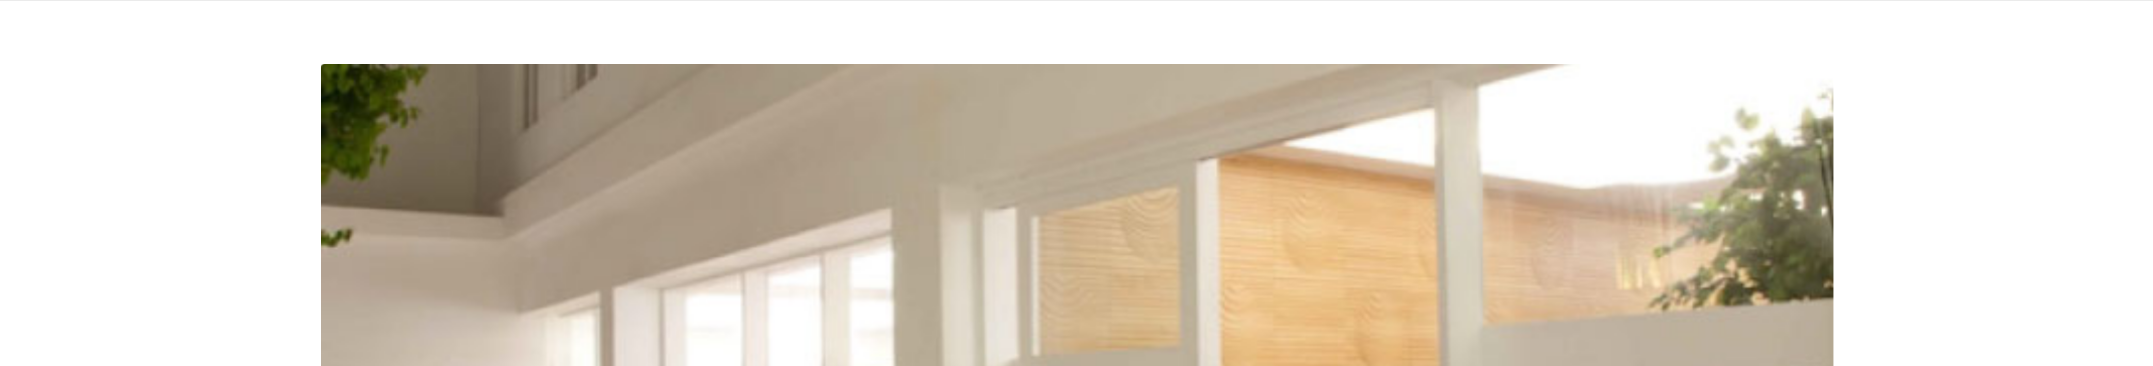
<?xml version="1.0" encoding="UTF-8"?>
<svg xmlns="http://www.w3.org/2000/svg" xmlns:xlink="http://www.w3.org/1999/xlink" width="2153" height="366">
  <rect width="100%" height="100%" fill="#ffffff" />
  <rect width="2153" height="1" fill="#ebebeb" />
  <image x="321" y="64" width="1513" height="302" xlink:href="image1.png" />
</svg>
